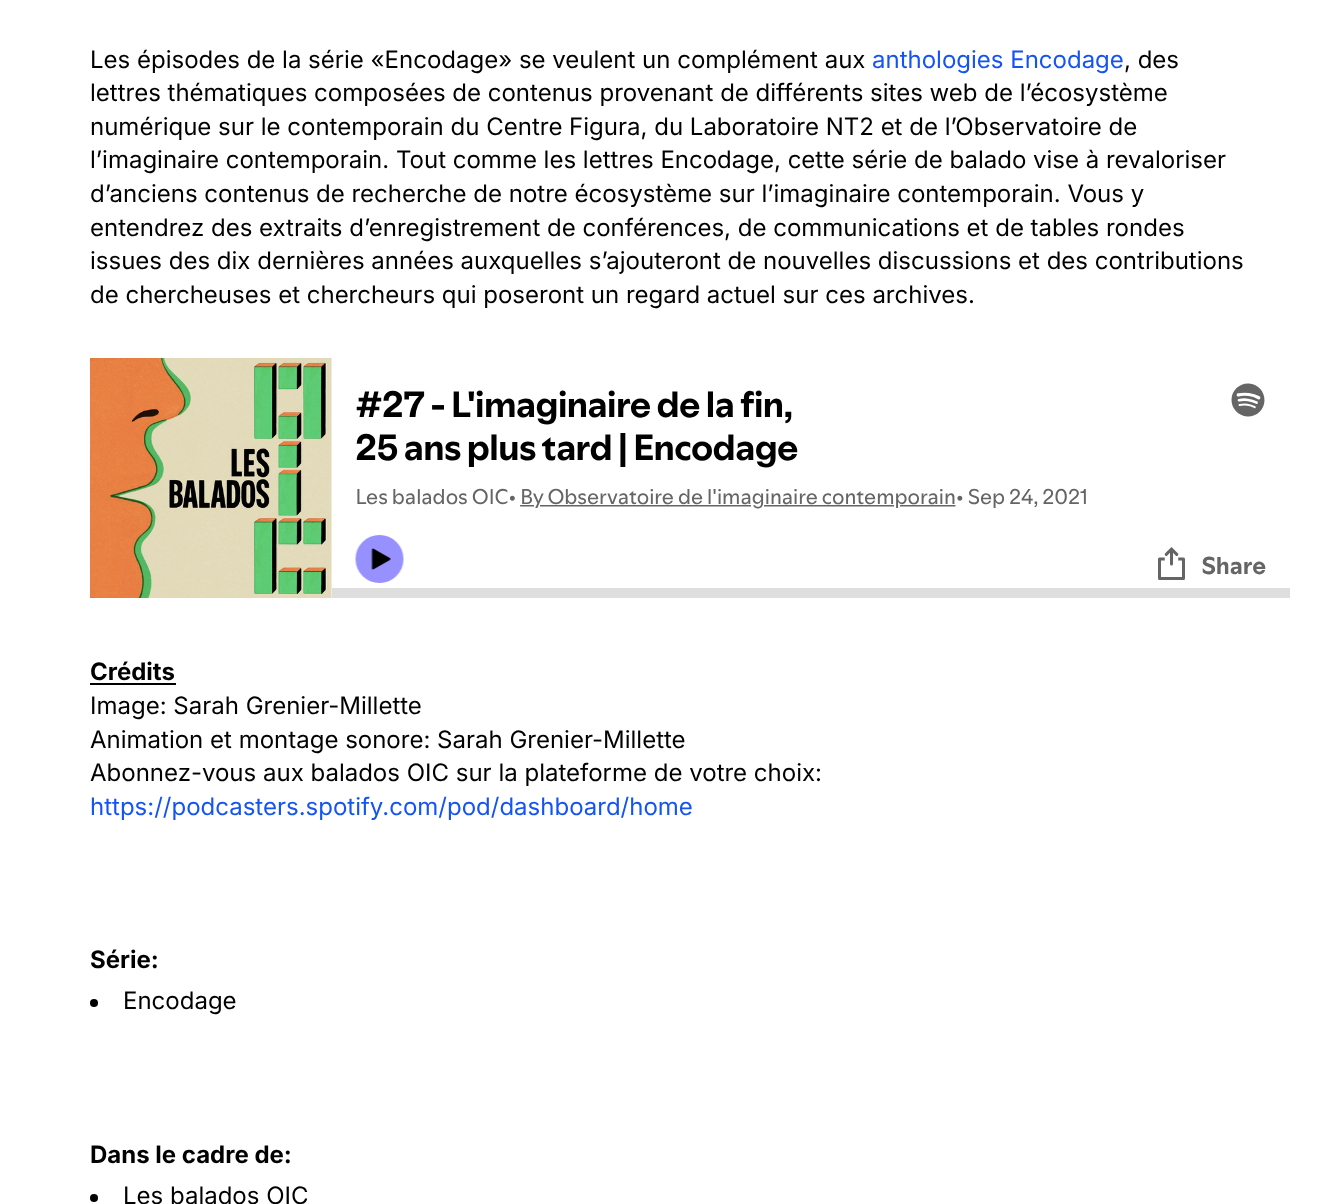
<?xml version="1.0" encoding="UTF-8"?>
<svg xmlns="http://www.w3.org/2000/svg" xmlns:xlink="http://www.w3.org/1999/xlink" width="1343" height="1204">
  <rect width="100%" height="100%" fill="#ffffff" />
  <image x="90" y="358" width="1200" height="240" xlink:href="image1.png" />
  <rect x="90" y="683" width="86" height="2" fill="#000000" />
  <circle cx="94" cy="1003" r="4" fill="#000000" />
  <circle cx="94" cy="1198" r="4" fill="#000000" />
  <text x="90" y="68" style="font-family: Inter; font-size: 24px; fill: #000000">Les épisodes de la série «Encodage» se veulent un complément aux</text>
  <text x="872" y="68" style="font-family: Inter; font-size: 24px; fill: #1453f5">anthologies Encodage</text>
  <text x="1124" y="68" style="font-family: Inter; font-size: 24px; fill: #000000">, des</text>
  <text x="90" y="101" style="font-family: Inter; font-size: 24px; fill: #000000">lettres thématiques composées de contenus provenant de différents sites web de l’écosystème</text>
  <text x="90" y="135" style="font-family: Inter; font-size: 24px; fill: #000000">numérique sur le contemporain du Centre Figura, du Laboratoire NT2 et de l’Observatoire de</text>
  <text x="90" y="168" style="font-family: Inter; font-size: 24px; fill: #000000">l’imaginaire contemporain. Tout comme les lettres Encodage, cette série de balado vise à revaloriser</text>
  <text x="90" y="202" style="font-family: Inter; font-size: 24px; fill: #000000">d’anciens contenus de recherche de notre écosystème sur l’imaginaire contemporain. Vous y</text>
  <text x="90" y="236" style="font-family: Inter; font-size: 24px; fill: #000000">entendrez des extraits d’enregistrement de conférences, de communications et de tables rondes</text>
  <text x="90" y="269" style="font-family: Inter; font-size: 24px; fill: #000000">issues des dix dernières années auxquelles s’ajouteront de nouvelles discussions et des contributions</text>
  <text x="90" y="303" style="font-family: Inter; font-size: 24px; fill: #000000">de chercheuses et chercheurs qui poseront un regard actuel sur ces archives.</text>
  <text x="90" y="680" style="font-family: Inter; font-size: 24px; font-weight: bold; fill: #000000">Crédits</text>
  <text x="90" y="714" style="font-family: Inter; font-size: 24px; fill: #000000">Image: Sarah Grenier-Millette</text>
  <text x="90" y="748" style="font-family: Inter; font-size: 24px; fill: #000000">Animation et montage sonore: Sarah Grenier-Millette</text>
  <text x="90" y="781" style="font-family: Inter; font-size: 24px; fill: #000000">Abonnez-vous aux balados OIC sur la plateforme de votre choix:</text>
  <text x="90" y="815" style="font-family: Inter; font-size: 24px; fill: #1453f5">https://podcasters.spotify.com/pod/dashboard/home</text>
  <text x="90" y="968" style="font-family: Inter; font-size: 24px; font-weight: bold; fill: #000000">Série:</text>
  <text x="123" y="1009" style="font-family: Inter; font-size: 24px; fill: #000000">Encodage</text>
  <text x="90" y="1163" style="font-family: Inter; font-size: 24px; font-weight: bold; fill: #000000">Dans le cadre de:</text>
  <text x="123" y="1204" style="font-family: Inter; font-size: 24px; fill: #000000">Les balados OIC</text>
</svg>
